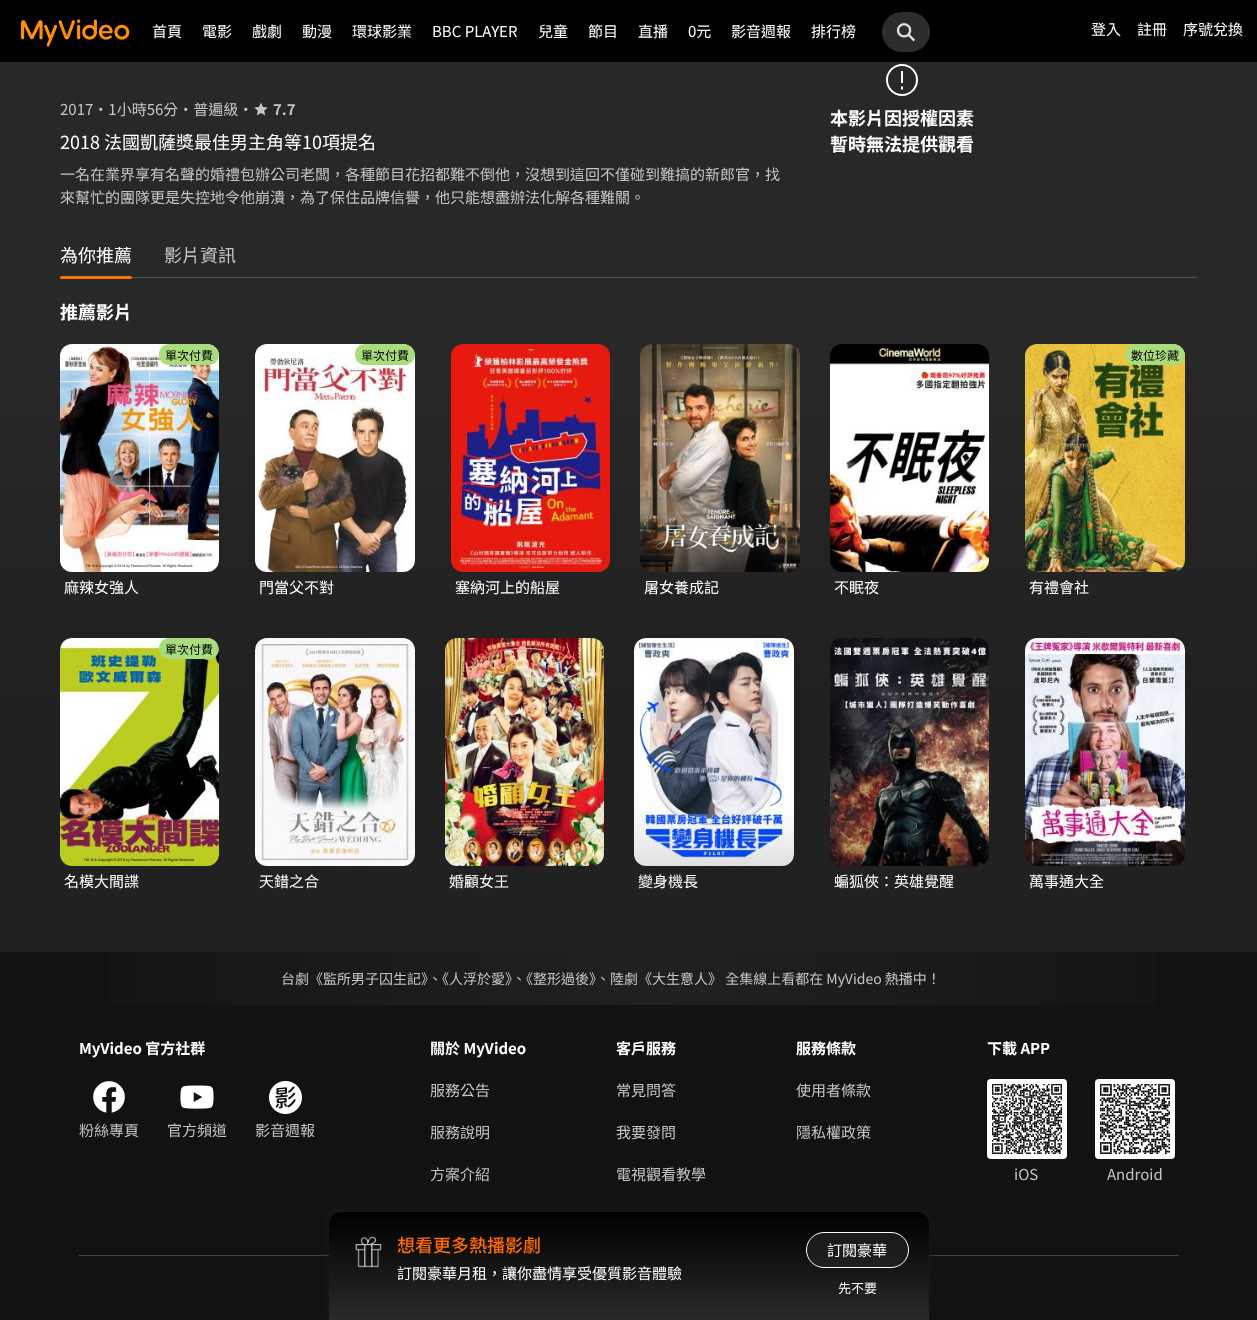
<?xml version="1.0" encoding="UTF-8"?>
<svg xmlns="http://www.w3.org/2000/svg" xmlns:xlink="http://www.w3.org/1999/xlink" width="1257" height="1320">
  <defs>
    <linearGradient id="g1" gradientUnits="userSpaceOnUse" x1="628" y1="-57" x2="629" y2="952"><stop offset="0.44" stop-color="#282828" /><stop offset="0.47" stop-color="#272727" /><stop offset="0.57" stop-color="#242424" /><stop offset="0.67" stop-color="#222222" /><stop offset="0.74" stop-color="#212121" /></linearGradient>
    <linearGradient id="g2" gradientUnits="userSpaceOnUse" x1="0" y1="979" x2="1257" y2="979"><stop offset="0" stop-color="#121212" /><stop offset="0.52" stop-color="#212121" /><stop offset="1" stop-color="#121212" /></linearGradient>
    <linearGradient id="g3" gradientUnits="userSpaceOnUse" x1="629" y1="1212" x2="629" y2="1320"><stop offset="0" stop-color="#000000" /><stop offset="1" stop-color="#2a2a2a" /></linearGradient>
  </defs>
  <rect width="100%" height="100%" fill="#121212" />
  <rect width="1257" height="62" fill="#000000" />
  <rect y="62" width="1257" height="1" fill="#2d2d2d" />
  <image x="21" y="19" width="109" height="28" xlink:href="image1.png" />
  <rect x="882" y="12" width="48" height="40" rx="20" fill="#2d2d2d" />
  <image x="896" y="23" width="19" height="19" xlink:href="image2.png" />
  <rect y="63" width="1257" height="889" fill="url(#g1)" />
  <image x="254" y="102" width="14" height="14" xlink:href="image3.png" />
  <circle cx="902" cy="80" r="15" fill="none" stroke="#ffffff" stroke-width="2" />
  <rect x="901" y="71" width="2" height="12" fill="#ffffff" />
  <path d="M 902 89.5 v -3" fill="none" stroke="#ffffff" stroke-width="2" />
  <rect x="60" y="277" width="1137" height="1" fill="#535353" />
  <rect x="60" y="276" width="72" height="3" rx="1.5" fill="#f57600" />
  <image x="60" y="344" width="159" height="228" xlink:href="image4.png" />
  <path d="M 169.5 344 h 37.5 c 6.5 0 12 5.5 12 12 v -1.5 c 0 6 -4.5 10.5 -10.5 10.5 h -39 c -6 0 -10.5 -4.5 -10.5 -10.5 c 0 -6 4.5 -10.5 10.5 -10.5 z" fill="#a8dc7d" />
  <image x="255" y="344" width="160" height="228" xlink:href="image5.png" />
  <path d="M 365.5 344 h 37.5 c 6.5 0 12 5.5 12 12 v -1.5 c 0 6 -4.5 10.5 -10.5 10.5 h -39 c -6 0 -10.5 -4.5 -10.5 -10.5 c 0 -6 4.5 -10.5 10.5 -10.5 z" fill="#a8dc7d" />
  <image x="451" y="344" width="159" height="228" xlink:href="image6.png" />
  <image x="640" y="344" width="160" height="228" xlink:href="image7.png" />
  <image x="830" y="344" width="159" height="228" xlink:href="image8.png" />
  <image x="1025" y="344" width="160" height="228" xlink:href="image9.png" />
  <path d="M 1135.5 344 h 37.5 c 6.5 0 12 5.5 12 12 v -1.5 c 0 6 -4.5 10.5 -10.5 10.5 h -39 c -6 0 -10.5 -4.5 -10.5 -10.5 c 0 -6 4.5 -10.5 10.5 -10.5 z" fill="#a8dc7d" />
  <rect x="60" y="638" width="159" height="228" rx="12" fill="#121212" />
  <image x="60" y="638" width="159" height="228" xlink:href="image10.png" />
  <path d="M 169.5 638 h 37.5 c 6.5 0 12 5.5 12 12 v -1.5 c 0 6 -4.5 10.5 -10.5 10.5 h -39 c -6 0 -10.5 -4.5 -10.5 -10.5 c 0 -6 4.5 -10.5 10.5 -10.5 z" fill="#a8dc7d" />
  <rect x="255" y="638" width="160" height="228" rx="12" fill="#121212" />
  <image x="255" y="638" width="160" height="228" xlink:href="image11.png" />
  <rect x="445" y="638" width="159" height="228" rx="12" fill="#121212" />
  <image x="445" y="638" width="159" height="228" xlink:href="image12.png" />
  <rect x="634" y="638" width="160" height="228" rx="12" fill="#121212" />
  <image x="634" y="638" width="160" height="228" xlink:href="image13.png" />
  <rect x="830" y="638" width="159" height="228" rx="12" fill="#121212" />
  <image x="830" y="638" width="159" height="228" xlink:href="image14.png" />
  <rect x="1025" y="638" width="160" height="228" rx="12" fill="#121212" />
  <image x="1025" y="638" width="160" height="228" xlink:href="image15.png" />
  <rect x="109" y="952" width="1047" height="53" fill="url(#g2)" />
  <image x="93" y="1081" width="32" height="32" xlink:href="image16.png" />
  <image x="180" y="1085" width="34" height="24" xlink:href="image17.png" />
  <image x="269" y="1081" width="33" height="33" xlink:href="image18.png" />
  <image x="987" y="1079" width="80" height="80" xlink:href="image19.png" />
  <image x="1095" y="1079" width="80" height="80" xlink:href="image20.png" />
  <rect x="79" y="1255" width="1100" height="1" fill="#424242" />
  <rect x="329" y="1211" width="600" height="108" rx="12" fill="#1b1b1b" fill-opacity="0.8" filter="blur(4px)" />
  <path d="M 341 1212 h 576 c 6.5 0 12 5.5 12 12 v 96 h -600 v -96 c 0 -6.5 5.5 -12 12 -12 z" fill="url(#g3)" />
  <image x="355" y="1236" width="27" height="32" xlink:href="image21.png" />
  <rect x="806.5" y="1232.5" width="102" height="35" rx="17.5" fill="#262626" fill-opacity="0.6" stroke="#ffffff" />
  <text x="152" y="37" style="font-family: Noto Sans TC; font-size: 15px; fill: #ffffff">首頁</text>
  <text x="202" y="37" style="font-family: Noto Sans TC; font-size: 15px; fill: #ffffff">電影</text>
  <text x="252" y="37" style="font-family: Noto Sans TC; font-size: 15px; fill: #ffffff">戲劇</text>
  <text x="302" y="37" style="font-family: Noto Sans TC; font-size: 15px; fill: #ffffff">動漫</text>
  <text x="352" y="37" style="font-family: Noto Sans TC; font-size: 15px; fill: #ffffff">環球影業</text>
  <text x="432" y="37" style="font-family: Noto Sans TC; font-size: 15px; fill: #ffffff">BBC PLAYER</text>
  <text x="538" y="37" style="font-family: Noto Sans TC; font-size: 15px; fill: #ffffff">兒童</text>
  <text x="588" y="37" style="font-family: Noto Sans TC; font-size: 15px; fill: #ffffff">節目</text>
  <text x="638" y="37" style="font-family: Noto Sans TC; font-size: 15px; fill: #ffffff">直播</text>
  <text x="688" y="37" style="font-family: Noto Sans TC; font-size: 15px; fill: #ffffff">0元</text>
  <text x="731" y="37" style="font-family: Noto Sans TC; font-size: 15px; fill: #ffffff">影音週報</text>
  <text x="811" y="37" style="font-family: Noto Sans TC; font-size: 15px; fill: #ffffff">排行榜</text>
  <text x="1091" y="35" style="font-family: Noto Sans TC; font-size: 15px; fill: #ffffff">登入</text>
  <text x="1137" y="35" style="font-family: Noto Sans TC; font-size: 15px; fill: #ffffff">註冊</text>
  <text x="1183" y="35" style="font-family: Noto Sans TC; font-size: 15px; fill: #ffffff">序號兌換</text>
  <text x="60" y="115" style="font-family: Noto Sans TC; font-size: 15px; fill: #c4c4c4">2017・1小時56分・普遍級・</text>
  <text x="273" y="115" style="font-family: Noto Sans TC; font-size: 15px; font-weight: bold; fill: #c4c4c4">7.7</text>
  <text x="60" y="149" style="font-family: Noto Sans TC; font-size: 18px; fill: #ffffff">2018 法國凱薩獎最佳男主角等10項提名</text>
  <text x="60" y="180" style="font-family: Noto Sans TC; font-size: 15px; fill: #c4c4c4">一名在業界享有名聲的婚禮包辦公司老闆，各種節目花招都難不倒他，沒想到這回不僅碰到難搞的新郎官，找</text>
  <text x="60" y="203" style="font-family: Noto Sans TC; font-size: 15px; fill: #c4c4c4">來幫忙的團隊更是失控地令他崩潰，為了保住品牌信譽，他只能想盡辦法化解各種難關。</text>
  <text x="830" y="125" style="font-family: Noto Sans TC; font-size: 18px; font-weight: bold; fill: #ffffff">本影片因授權因素</text>
  <text x="830" y="151" style="font-family: Noto Sans TC; font-size: 18px; font-weight: bold; fill: #ffffff">暫時無法提供觀看</text>
  <text x="60" y="262" style="font-family: Noto Sans TC; font-size: 18px; fill: #ffffff">為你推薦</text>
  <text x="164" y="262" style="font-family: Noto Sans TC; font-size: 18px; fill: #c4c4c4">影片資訊</text>
  <text x="60" y="319" style="font-family: Noto Sans TC; font-size: 18px; font-weight: bold; fill: #ffffff">推薦影片</text>
  <text x="165" y="360" style="font-family: Noto Sans TC; font-size: 12px; fill: #000000">單次付費</text>
  <text x="64" y="593" style="font-family: Noto Sans TC; font-size: 15px; fill: #ffffff">麻辣女強人</text>
  <text x="361" y="360" style="font-family: Noto Sans TC; font-size: 12px; fill: #000000">單次付費</text>
  <text x="259" y="593" style="font-family: Noto Sans TC; font-size: 15px; fill: #ffffff">門當父不對</text>
  <text x="455" y="593" style="font-family: Noto Sans TC; font-size: 15px; fill: #ffffff">塞納河上的船屋</text>
  <text x="644" y="593" style="font-family: Noto Sans TC; font-size: 15px; fill: #ffffff">屠女養成記</text>
  <text x="834" y="593" style="font-family: Noto Sans TC; font-size: 15px; fill: #ffffff">不眠夜</text>
  <text x="1131" y="360" style="font-family: Noto Sans TC; font-size: 12px; fill: #000000">數位珍藏</text>
  <text x="1029" y="593" style="font-family: Noto Sans TC; font-size: 15px; fill: #ffffff">有禮會社</text>
  <text x="165" y="654" style="font-family: Noto Sans TC; font-size: 12px; fill: #000000">單次付費</text>
  <text x="64" y="887" style="font-family: Noto Sans TC; font-size: 15px; fill: #ffffff">名模大間諜</text>
  <text x="259" y="887" style="font-family: Noto Sans TC; font-size: 15px; fill: #ffffff">天錯之合</text>
  <text x="449" y="887" style="font-family: Noto Sans TC; font-size: 15px; fill: #ffffff">婚顧女王</text>
  <text x="638" y="887" style="font-family: Noto Sans TC; font-size: 15px; fill: #ffffff">變身機長</text>
  <text x="834" y="887" style="font-family: Noto Sans TC; font-size: 15px; fill: #ffffff">蝙狐俠：英雄覺醒</text>
  <text x="1029" y="887" style="font-family: Noto Sans TC; font-size: 15px; fill: #ffffff">萬事通大全</text>
  <text x="281" y="984" style="font-family: Noto Sans TC; font-size: 14px; fill: #c4c4c4">台劇《監所男子囚生記》、《人浮於愛》、《整形過後》、陸劇《大生意人》 全集線上看都在 MyVideo 熱播中！</text>
  <text x="79" y="1054" style="font-family: Noto Sans TC; font-size: 15px; font-weight: bold; fill: #ffffff">MyVideo 官方社群</text>
  <text x="79" y="1136" style="font-family: Noto Sans TC; font-size: 15px; fill: #c4c4c4">粉絲專頁</text>
  <text x="167" y="1136" style="font-family: Noto Sans TC; font-size: 15px; fill: #c4c4c4">官方頻道</text>
  <text x="255" y="1136" style="font-family: Noto Sans TC; font-size: 15px; fill: #c4c4c4">影音週報</text>
  <text x="430" y="1054" style="font-family: Noto Sans TC; font-size: 15px; font-weight: bold; fill: #ffffff">關於 MyVideo</text>
  <text x="430" y="1096" style="font-family: Noto Sans TC; font-size: 15px; fill: #c4c4c4">服務公告</text>
  <text x="430" y="1138" style="font-family: Noto Sans TC; font-size: 15px; fill: #c4c4c4">服務說明</text>
  <text x="430" y="1180" style="font-family: Noto Sans TC; font-size: 15px; fill: #c4c4c4">方案介紹</text>
  <text x="616" y="1054" style="font-family: Noto Sans TC; font-size: 15px; font-weight: bold; fill: #ffffff">客戶服務</text>
  <text x="616" y="1096" style="font-family: Noto Sans TC; font-size: 15px; fill: #c4c4c4">常見問答</text>
  <text x="616" y="1138" style="font-family: Noto Sans TC; font-size: 15px; fill: #c4c4c4">我要發問</text>
  <text x="616" y="1180" style="font-family: Noto Sans TC; font-size: 15px; fill: #c4c4c4">電視觀看教學</text>
  <text x="796" y="1054" style="font-family: Noto Sans TC; font-size: 15px; font-weight: bold; fill: #ffffff">服務條款</text>
  <text x="796" y="1096" style="font-family: Noto Sans TC; font-size: 15px; fill: #c4c4c4">使用者條款</text>
  <text x="796" y="1138" style="font-family: Noto Sans TC; font-size: 15px; fill: #c4c4c4">隱私權政策</text>
  <text x="987" y="1054" style="font-family: Noto Sans TC; font-size: 15px; font-weight: bold; fill: #ffffff">下載 APP</text>
  <text x="1014" y="1180" style="font-family: Noto Sans TC; font-size: 15px; fill: #c4c4c4">iOS</text>
  <text x="1107" y="1180" style="font-family: Noto Sans TC; font-size: 15px; fill: #c4c4c4">Android</text>
  <text x="397" y="1252" style="font-family: Noto Sans TC; font-size: 18px; font-weight: 500; fill: #ff6b00">想看更多熱播影劇</text>
  <text x="397" y="1279" style="font-family: Noto Sans TC; font-size: 15px; fill: #ffffff">訂閱豪華月租，讓你盡情享受優質影音體驗</text>
  <text x="827" y="1256" style="font-family: Noto Sans TC; font-size: 15px; fill: #ffffff">訂閱豪華</text>
  <text x="838" y="1293" style="font-family: Noto Sans TC; font-size: 13px; fill: #ffffff">先不要</text>
</svg>
